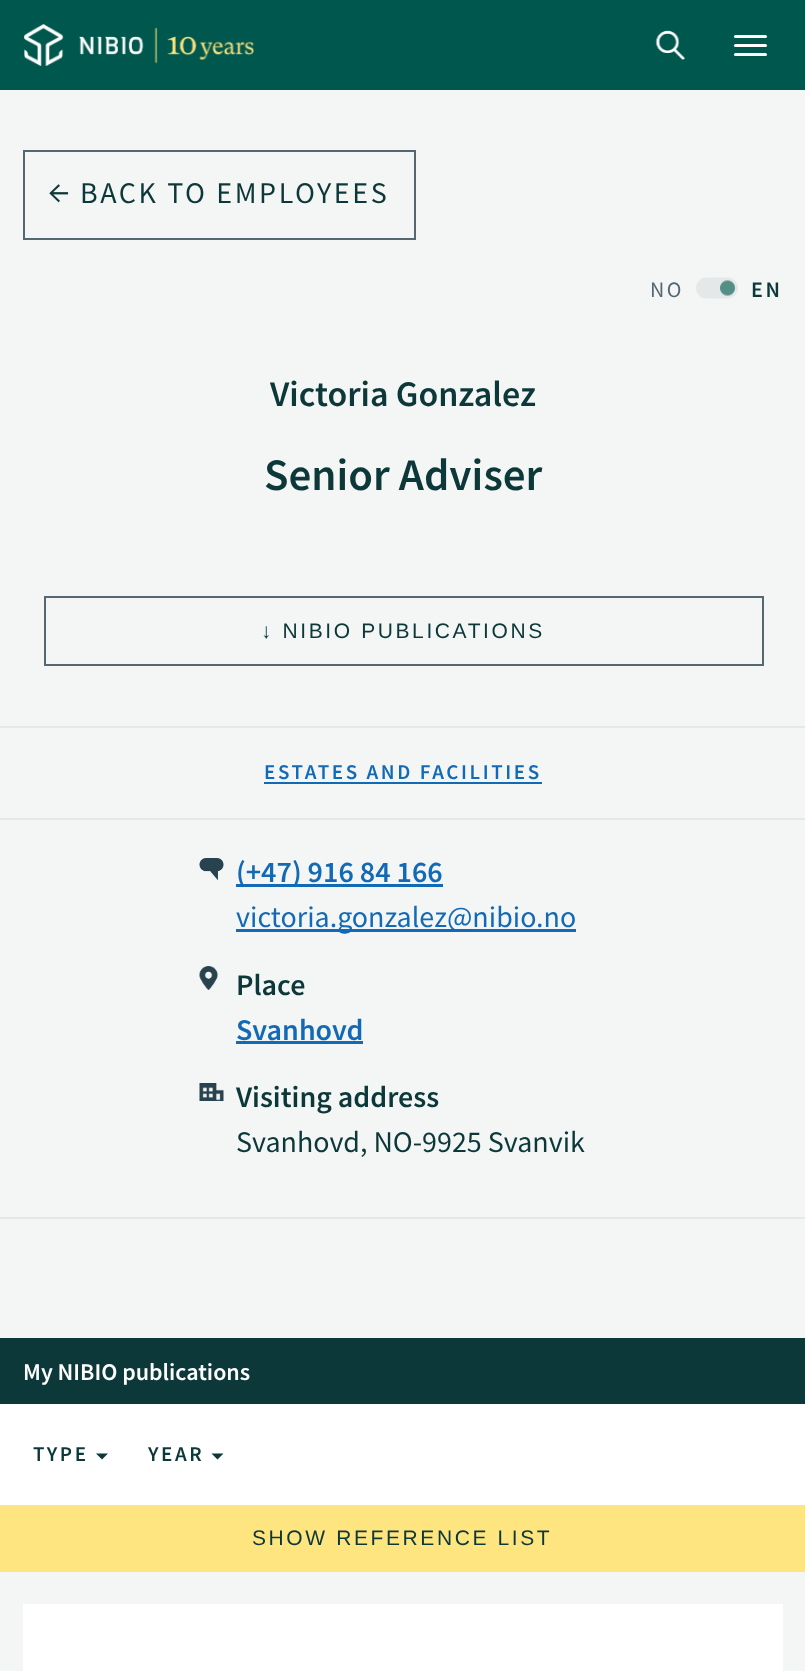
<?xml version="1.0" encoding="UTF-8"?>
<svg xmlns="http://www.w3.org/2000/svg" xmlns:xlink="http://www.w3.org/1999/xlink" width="805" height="1671">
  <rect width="100%" height="100%" fill="#f4f5f5" />
  <rect width="805" height="90" fill="#00574d" />
  <image x="24" y="24" width="230" height="42" xlink:href="image1.png" />
  <image x="655" y="30" width="30" height="30" xlink:href="image2.png" />
  <rect x="734" y="35" width="33" height="3" rx="1.5" fill="#ffffff" />
  <rect x="734" y="44" width="33" height="3" rx="1.5" fill="#ffffff" />
  <rect x="734" y="53" width="33" height="3" rx="1.5" fill="#ffffff" />
  <rect x="24" y="151" width="391" height="88" fill="none" stroke="#556872" stroke-width="2" />
  <image x="49" y="184" width="20" height="19" xlink:href="image3.png" />
  <image x="696" y="277" width="42" height="22" xlink:href="image4.png" />
  <rect x="45" y="597" width="718" height="68" fill="none" stroke="#556872" stroke-width="2" />
  <rect y="726" width="805" height="2" fill="#e5e8e9" />
  <rect x="264" y="782" width="278" height="2" fill="#126ab6" />
  <rect y="818" width="805" height="2" fill="#e5e8e9" />
  <rect y="1217" width="805" height="2" fill="#e5e8e9" />
  <image x="199" y="858" width="25" height="23" xlink:href="image5.png" />
  <rect x="236" y="884" width="207" height="3" fill="#126ab6" />
  <rect x="236" y="929" width="340" height="3" fill="#126ab6" />
  <image x="199" y="966" width="19" height="24" xlink:href="image6.png" />
  <rect x="236" y="1041" width="127" height="3" fill="#126ab6" />
  <image x="199" y="1083" width="25" height="18" xlink:href="image7.png" />
  <rect y="1404" width="805" height="101" fill="#ffffff" />
  <rect y="1338" width="805" height="66" fill="#0d3839" />
  <path d="M 96 1453.5 h 12 l -6 6 z" fill="#0d3839" />
  <path d="M 211.5 1453.5 h 12 l -6 6 z" fill="#0d3839" />
  <rect y="1505" width="805" height="67" fill="#ffe57f" />
  <rect x="23" y="1604" width="760" height="67" fill="#ffffff" />
  <text x="80" y="203" style="font-family: Source Sans Pro; font-size: 30px; letter-spacing: 2.6px; fill: #0d3839">BACK TO EMPLOYEES</text>
  <text x="650" y="297" style="font-family: Source Sans Pro; font-size: 22px; letter-spacing: 2.6px; fill: #556872">NO</text>
  <text x="751" y="297" style="font-family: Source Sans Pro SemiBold; font-size: 22px; font-weight: 600; letter-spacing: 2.6px; fill: #0d3839">EN</text>
  <text x="270" y="406" style="font-family: Source Sans Pro SemiBold; font-size: 36px; font-weight: 600; fill: #0d3839">Victoria Gonzalez</text>
  <text x="264" y="490" style="font-family: Source Sans Pro SemiBold; font-size: 45px; font-weight: 600; fill: #0d3839">Senior Adviser</text>
  <text x="261" y="638" style="font-family: Liberation Sans; font-size: 21px; letter-spacing: 2.6px; fill: #0d3839">↓ NIBIO PUBLICATIONS</text>
  <text x="264" y="779" style="font-family: Source Sans Pro SemiBold; font-size: 21px; font-weight: 600; letter-spacing: 2.6px; fill: #126ab6">ESTATES AND FACILITIES</text>
  <text x="236" y="882" style="font-family: Source Sans Pro SemiBold; font-size: 30px; font-weight: 600; fill: #126ab6">(+47) 916 84 166</text>
  <text x="236" y="927" style="font-family: Source Sans Pro; font-size: 30px; fill: #126ab6">victoria.gonzalez@nibio.no</text>
  <text x="236" y="995" style="font-family: Source Sans Pro SemiBold; font-size: 30px; font-weight: 600; fill: #0d3839">Place</text>
  <text x="236" y="1040" style="font-family: Source Sans Pro SemiBold; font-size: 30px; font-weight: 600; fill: #126ab6">Svanhovd</text>
  <text x="236" y="1107" style="font-family: Source Sans Pro SemiBold; font-size: 30px; font-weight: 600; fill: #0d3839">Visiting address</text>
  <text x="236" y="1152" style="font-family: Source Sans Pro; font-size: 30px; fill: #0d3839">Svanhovd, NO-9925 Svanvik</text>
  <text x="23" y="1380" style="font-family: Source Sans Pro SemiBold; font-size: 24px; font-weight: 600; fill: #ffffff">My NIBIO publications</text>
  <text x="33" y="1461" style="font-family: Source Sans Pro SemiBold; font-size: 21px; font-weight: 600; letter-spacing: 2.6px; fill: #0d3839">TYPE</text>
  <text x="148" y="1461" style="font-family: Source Sans Pro SemiBold; font-size: 21px; font-weight: 600; letter-spacing: 2.6px; fill: #0d3839">YEAR</text>
  <text x="252" y="1545" style="font-family: Liberation Sans; font-size: 21px; letter-spacing: 2.6px; fill: #0d3839">SHOW REFERENCE LIST</text>
</svg>
